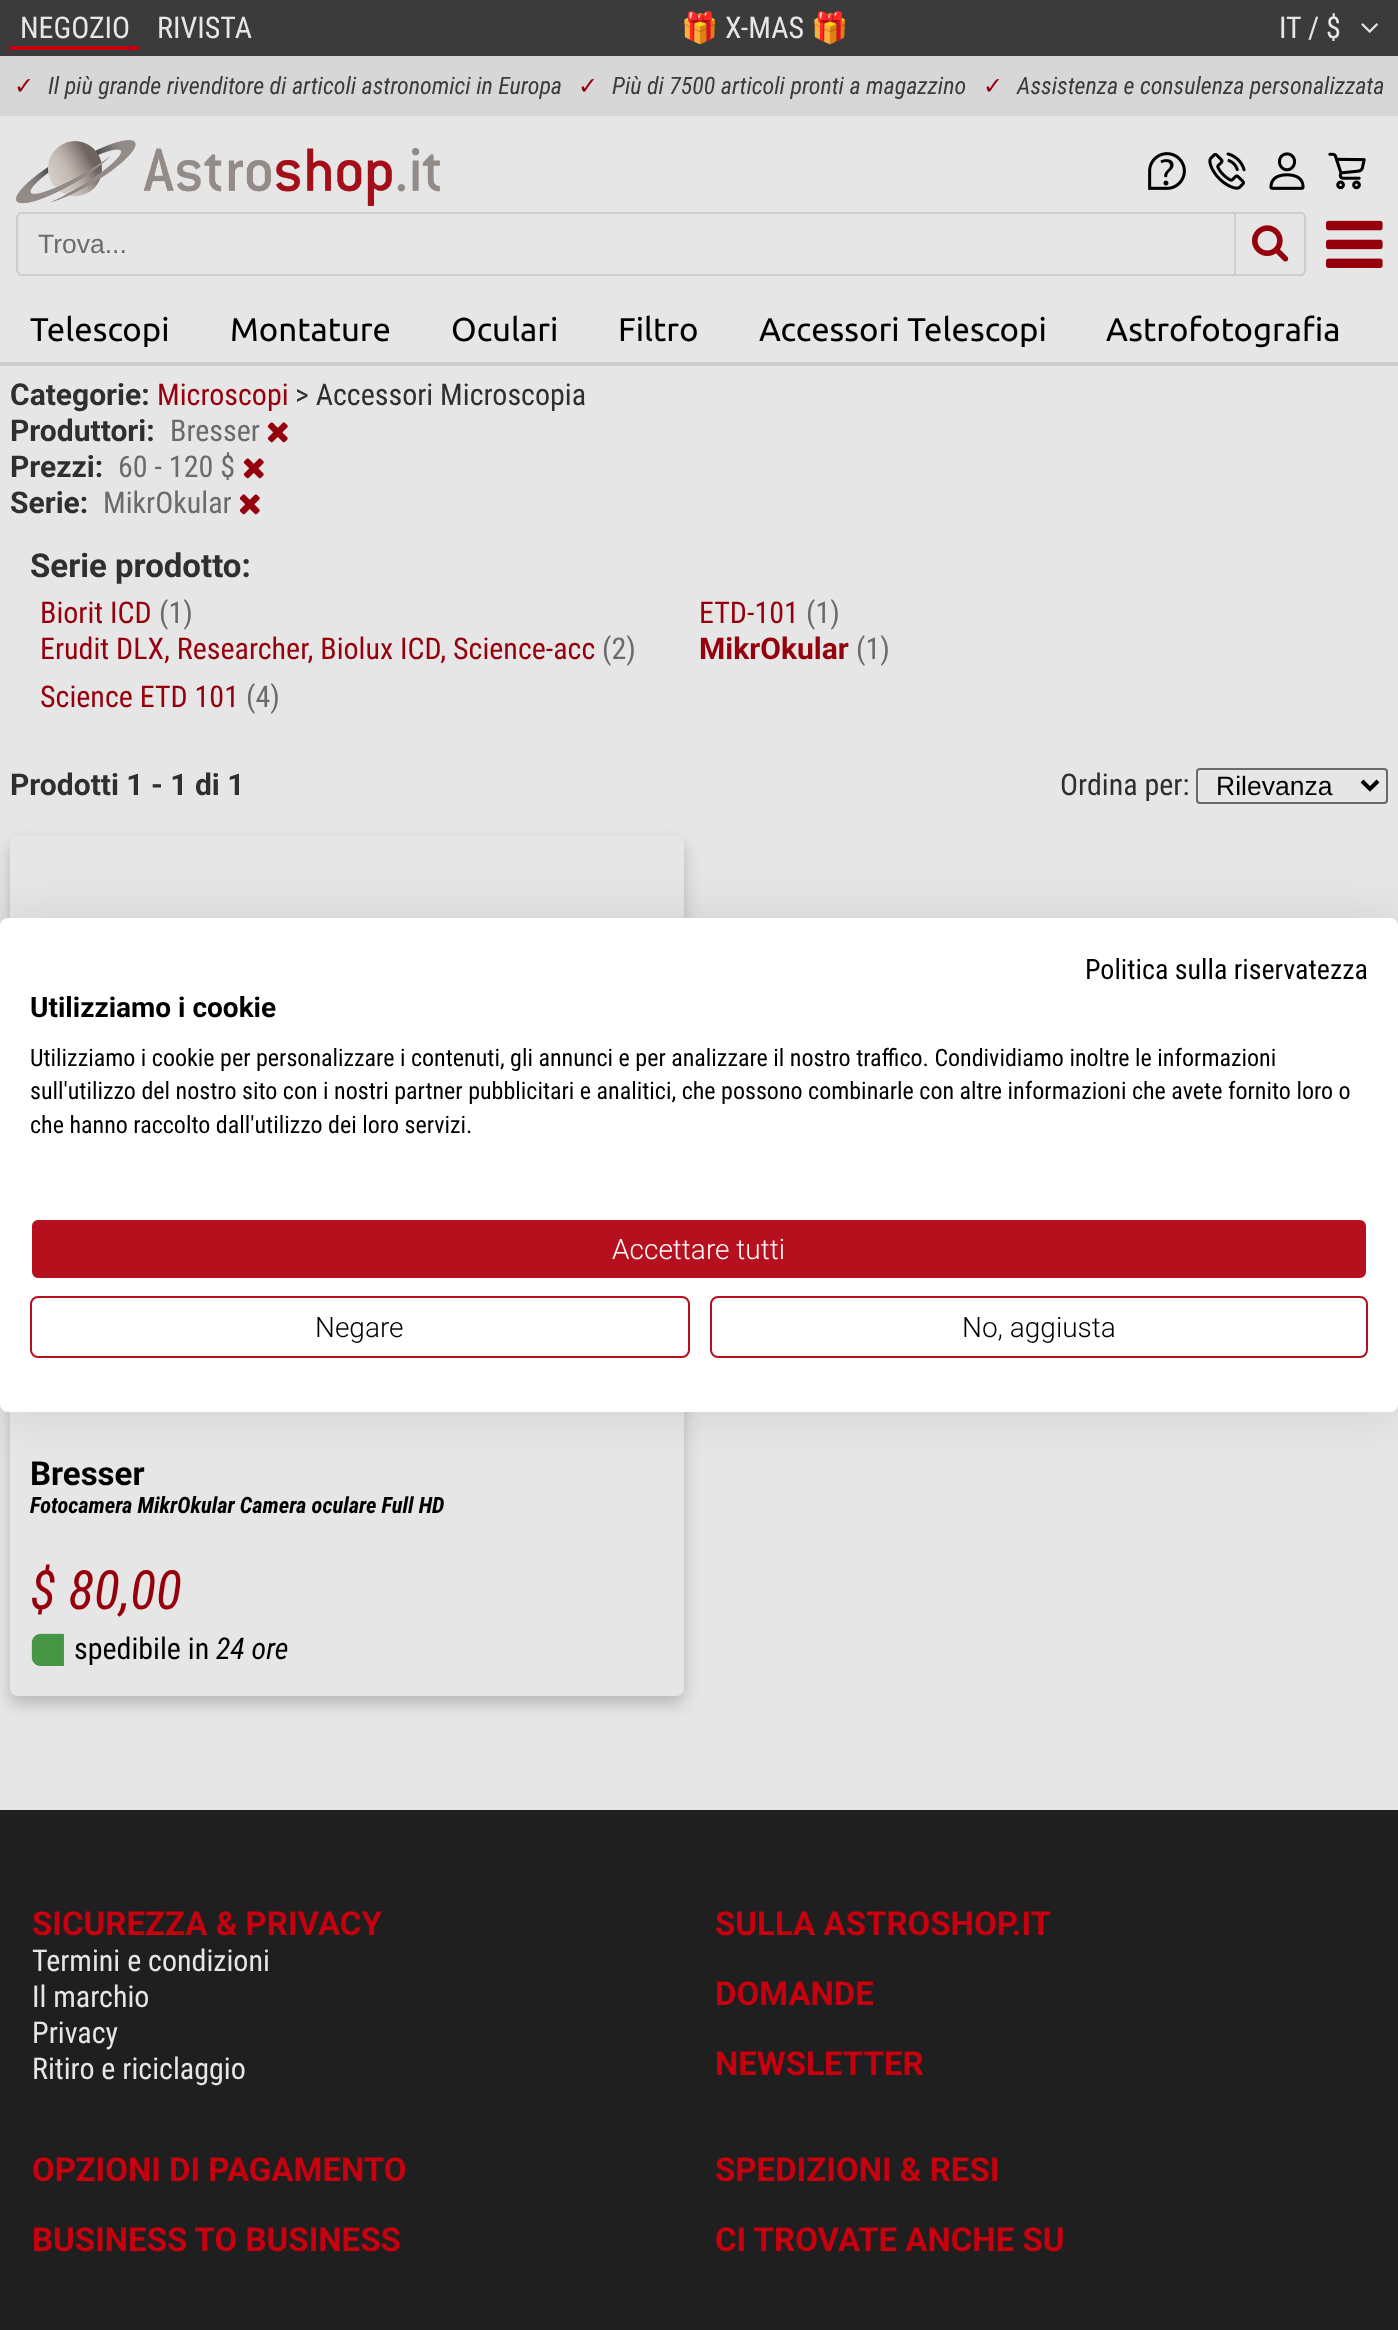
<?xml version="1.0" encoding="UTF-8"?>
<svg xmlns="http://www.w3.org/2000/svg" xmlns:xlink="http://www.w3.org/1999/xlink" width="1398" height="2330">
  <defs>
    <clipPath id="clip1"><path d="M 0 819 h 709 v 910 h -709 z m 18 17 h 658 c 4.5 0 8 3.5 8 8 v 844 c 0 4.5 -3.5 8 -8 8 h -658 c -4.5 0 -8 -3.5 -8 -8 v -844 c 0 -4.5 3.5 -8 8 -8 z" clip-rule="evenodd" /></clipPath>
  </defs>
  <rect width="100%" height="100%" fill="#e6e6e6" />
  <rect width="1398" height="56" fill="#3b3b3c" />
  <rect x="10" y="46" width="130" height="4" fill="#c7000f" />
  <image x="1361" y="23" width="17" height="10" xlink:href="image1.png" />
  <rect y="56" width="1398" height="60" fill="#d7d7d7" />
  <image x="16" y="140" width="424" height="66" xlink:href="image2.png" />
  <image x="1148" y="152" width="38" height="38" xlink:href="image3.png" />
  <image x="1208" y="152" width="38" height="38" xlink:href="image4.png" />
  <image x="1269" y="152" width="36" height="38" xlink:href="image5.png" />
  <image x="1328" y="152" width="38" height="38" xlink:href="image6.png" />
  <rect x="17" y="213" width="1288" height="62" rx="5" fill="none" stroke="#cecece" stroke-width="2" />
  <path d="M 1235 213 h 65 c 3 0 5 2 5 5 v 52 c 0 3 -2 5 -5 5 h -65 z" fill="#e6e6e6" stroke="#cecece" stroke-width="2" />
  <image x="1252" y="225" width="37" height="37" xlink:href="image7.png" />
  <image x="1326" y="220" width="57" height="48" xlink:href="image8.png" />
  <rect y="362" width="1398" height="4" fill="#cecece" />
  <image x="267" y="422" width="21" height="21" xlink:href="image9.png" />
  <image x="243" y="458" width="21" height="21" xlink:href="image9.png" />
  <image x="239" y="494" width="21" height="21" xlink:href="image9.png" />
  <rect x="1197" y="769" width="190" height="34" rx="3" fill="none" stroke="#6a6a6a" stroke-width="2" />
  <path d="M 1362 781 l 8 8 l 8 -8" fill="none" stroke="#000000" stroke-width="4" />
  <g clip-path="url(#clip1)">
    <rect x="10" y="844" width="674" height="860" rx="8" fill="#000000" fill-opacity="0.2" filter="blur(8px)" />
  </g>
  <image x="31" y="1633" width="33" height="33" xlink:href="image10.png" />
  <rect y="1810" width="1398" height="520" fill="#1f1f1f" />
  <rect y="918" width="1398" height="494" rx="8" fill="#000000" fill-opacity="0.1" filter="blur(24px)" />
  <rect y="918" width="1398" height="494" rx="8" fill="#ffffff" />
  <rect x="31" y="1219" width="1336" height="60" rx="7" fill="#b60f1d" stroke="#ffffff" stroke-width="2" />
  <rect x="31" y="1297" width="658" height="60" rx="7" fill="none" stroke="#b60f1d" stroke-width="2" />
  <rect x="711" y="1297" width="656" height="60" rx="7" fill="none" stroke="#b60f1d" stroke-width="2" />
  <text x="20" y="38" style="font-family: Roboto Condensed; font-size: 30px; fill: #e6e6e6">NEGOZIO</text>
  <text x="157" y="38" style="font-family: Roboto Condensed; font-size: 30px; fill: #e6e6e6">RIVISTA</text>
  <text x="681" y="38" style="font-family: Noto Color Emoji; font-size: 30px; fill: #e6e6e6">🎁</text>
  <text x="725" y="38" style="font-family: Roboto Condensed; font-size: 30px; fill: #e6e6e6">X-MAS</text>
  <text x="811" y="38" style="font-family: Noto Color Emoji; font-size: 30px; fill: #e6e6e6">🎁</text>
  <text x="1279" y="38" style="font-family: Roboto Condensed; font-size: 30px; fill: #e6e6e6">IT / $</text>
  <text x="14" y="94" style="font-family: DejaVu Sans; font-size: 24px; fill: #95000c">✓</text>
  <text x="48" y="94" style="font-family: Roboto Condensed; font-size: 24px; font-style: italic; fill: #3b3b3c">Il più grande rivenditore di articoli astronomici in Europa</text>
  <text x="578" y="94" style="font-family: DejaVu Sans; font-size: 24px; fill: #95000c">✓</text>
  <text x="612" y="94" style="font-family: Roboto Condensed; font-size: 24px; font-style: italic; fill: #3b3b3c">Più di 7500 articoli pronti a magazzino</text>
  <text x="983" y="94" style="font-family: DejaVu Sans; font-size: 24px; fill: #95000c">✓</text>
  <text x="1017" y="94" style="font-family: Roboto Condensed; font-size: 24px; font-style: italic; fill: #3b3b3c">Assistenza e consulenza personalizzata</text>
  <text x="38" y="253" style="font-family: Liberation Sans; font-size: 26.5px; fill: #6b6b6b">Trova...</text>
  <text x="30" y="341" style="font-family: Ubuntu; font-size: 33px; fill: #000000">Telescopi</text>
  <text x="230" y="341" style="font-family: Ubuntu; font-size: 33px; fill: #000000">Montature</text>
  <text x="451" y="341" style="font-family: Ubuntu; font-size: 33px; fill: #000000">Oculari</text>
  <text x="618" y="341" style="font-family: Ubuntu; font-size: 33px; fill: #000000">Filtro</text>
  <text x="759" y="341" style="font-family: Ubuntu; font-size: 33px; fill: #000000">Accessori Telescopi</text>
  <text x="1106" y="341" style="font-family: Ubuntu; font-size: 33px; fill: #000000">Astrofotografia</text>
  <text x="10" y="405" style="font-family: Roboto; font-size: 30px; font-weight: bold; fill: #2f2f2f">Categorie:</text>
  <text x="157" y="405" style="font-family: Roboto Condensed; font-size: 30px; fill: #95000c">Microscopi</text>
  <text x="295" y="405" style="font-family: Roboto Condensed; font-size: 30px; fill: #2f2f2f">&gt; Accessori Microscopia</text>
  <text x="10" y="441" style="font-family: Roboto; font-size: 30px; font-weight: bold; fill: #2f2f2f">Produttori:</text>
  <text x="170" y="441" style="font-family: Roboto Condensed; font-size: 30px; fill: #6b6b6b">Bresser</text>
  <text x="10" y="477" style="font-family: Roboto; font-size: 30px; font-weight: bold; fill: #2f2f2f">Prezzi:</text>
  <text x="118" y="477" style="font-family: Roboto Condensed; font-size: 30px; fill: #6b6b6b">60 - 120 $</text>
  <text x="10" y="513" style="font-family: Roboto; font-size: 30px; font-weight: bold; fill: #2f2f2f">Serie:</text>
  <text x="103" y="513" style="font-family: Roboto Condensed; font-size: 30px; fill: #6b6b6b">MikrOkular</text>
  <text x="30" y="577" style="font-family: Roboto; font-size: 33px; font-weight: bold; fill: #2f2f2f">Serie prodotto:</text>
  <text x="40" y="623" style="font-family: Roboto Condensed; font-size: 30px; fill: #95000c">Biorit ICD</text>
  <text x="159" y="623" style="font-family: Roboto Condensed; font-size: 30px; fill: #6b6b6b">(1)</text>
  <text x="40" y="659" style="font-family: Roboto Condensed; font-size: 30px; fill: #95000c">Erudit DLX, Researcher, Biolux ICD, Science-acc</text>
  <text x="602" y="659" style="font-family: Roboto Condensed; font-size: 30px; fill: #6b6b6b">(2)</text>
  <text x="699" y="623" style="font-family: Roboto Condensed; font-size: 30px; fill: #95000c">ETD-101</text>
  <text x="806" y="623" style="font-family: Roboto Condensed; font-size: 30px; fill: #6b6b6b">(1)</text>
  <text x="699" y="659" style="font-family: Roboto; font-size: 30px; font-weight: bold; fill: #95000c">MikrOkular</text>
  <text x="856" y="659" style="font-family: Roboto Condensed; font-size: 30px; fill: #6b6b6b">(1)</text>
  <text x="40" y="707" style="font-family: Roboto Condensed; font-size: 30px; fill: #95000c">Science ETD 101</text>
  <text x="246" y="707" style="font-family: Roboto Condensed; font-size: 30px; fill: #6b6b6b">(4)</text>
  <text x="10" y="795" style="font-family: Roboto; font-size: 30px; font-weight: bold; fill: #2f2f2f">Prodotti 1 - 1 di 1</text>
  <text x="1060" y="795" style="font-family: Roboto Condensed; font-size: 30px; fill: #2f2f2f">Ordina per:</text>
  <text x="1216" y="795" style="font-family: Liberation Sans; font-size: 26.5px; fill: #000000">Rilevanza</text>
  <text x="30" y="1485" style="font-family: Roboto; font-size: 33px; font-weight: bold; fill: #000000">Bresser</text>
  <text x="30" y="1513" style="font-family: Roboto Condensed; font-size: 22.5px; font-weight: bold; font-style: italic; fill: #000000">Fotocamera MikrOkular Camera oculare Full HD</text>
  <text x="30" y="1609" style="font-family: Roboto Condensed; font-size: 54px; font-style: italic; fill: #95000c">$ 80,00</text>
  <text x="74" y="1659" style="font-family: Roboto Condensed; font-size: 30px; fill: #000000">spedibile in</text>
  <text x="216" y="1659" style="font-family: Roboto Condensed; font-size: 30px; font-style: italic; fill: #000000">24 ore</text>
  <text x="32" y="1935" style="font-family: Roboto; font-size: 33px; font-weight: bold; fill: #c7000f">SICUREZZA &amp; PRIVACY</text>
  <text x="32" y="1971" style="font-family: Roboto Condensed; font-size: 30px; fill: #e6e6e6">Termini e condizioni</text>
  <text x="32" y="2007" style="font-family: Roboto Condensed; font-size: 30px; fill: #e6e6e6">Il marchio</text>
  <text x="32" y="2043" style="font-family: Roboto Condensed; font-size: 30px; fill: #e6e6e6">Privacy</text>
  <text x="32" y="2079" style="font-family: Roboto Condensed; font-size: 30px; fill: #e6e6e6">Ritiro e riciclaggio</text>
  <text x="715" y="1935" style="font-family: Roboto; font-size: 33px; font-weight: bold; fill: #c7000f">SULLA ASTROSHOP.IT</text>
  <text x="715" y="2005" style="font-family: Roboto; font-size: 33px; font-weight: bold; fill: #c7000f">DOMANDE</text>
  <text x="715" y="2075" style="font-family: Roboto; font-size: 33px; font-weight: bold; fill: #c7000f">NEWSLETTER</text>
  <text x="32" y="2181" style="font-family: Roboto; font-size: 33px; font-weight: bold; fill: #c7000f">OPZIONI DI PAGAMENTO</text>
  <text x="715" y="2181" style="font-family: Roboto; font-size: 33px; font-weight: bold; fill: #c7000f">SPEDIZIONI &amp; RESI</text>
  <text x="32" y="2251" style="font-family: Roboto; font-size: 33px; font-weight: bold; fill: #c7000f">BUSINESS TO BUSINESS</text>
  <text x="715" y="2251" style="font-family: Roboto; font-size: 33px; font-weight: bold; fill: #c7000f">CI TROVATE ANCHE SU</text>
  <text x="1085" y="979" style="font-family: Roboto Condensed; font-size: 28px; fill: #000000">Politica sulla riservatezza</text>
  <text x="30" y="1017" style="font-family: Roboto; font-size: 28px; font-weight: bold; fill: #000000">Utilizziamo i cookie</text>
  <text x="30" y="1066" style="font-family: Roboto Condensed; font-size: 24px; fill: #000000">Utilizziamo i cookie per personalizzare i contenuti, gli annunci e per analizzare il nostro traffico. Condividiamo inoltre le informazioni</text>
  <text x="30" y="1099" style="font-family: Roboto Condensed; font-size: 24px; fill: #000000">sull'utilizzo del nostro sito con i nostri partner pubblicitari e analitici, che possono combinarle con altre informazioni che avete fornito loro o</text>
  <text x="30" y="1133" style="font-family: Roboto Condensed; font-size: 24px; fill: #000000">che hanno raccolto dall'utilizzo dei loro servizi.</text>
  <text x="612" y="1259" style="font-family: Roboto; font-size: 28px; font-weight: 300; fill: #ffffff">Accettare tutti</text>
  <text x="315" y="1337" style="font-family: Roboto; font-size: 28px; font-weight: 300; fill: #000000">Negare</text>
  <text x="962" y="1337" style="font-family: Roboto; font-size: 28px; font-weight: 300; fill: #000000">No, aggiusta</text>
</svg>
